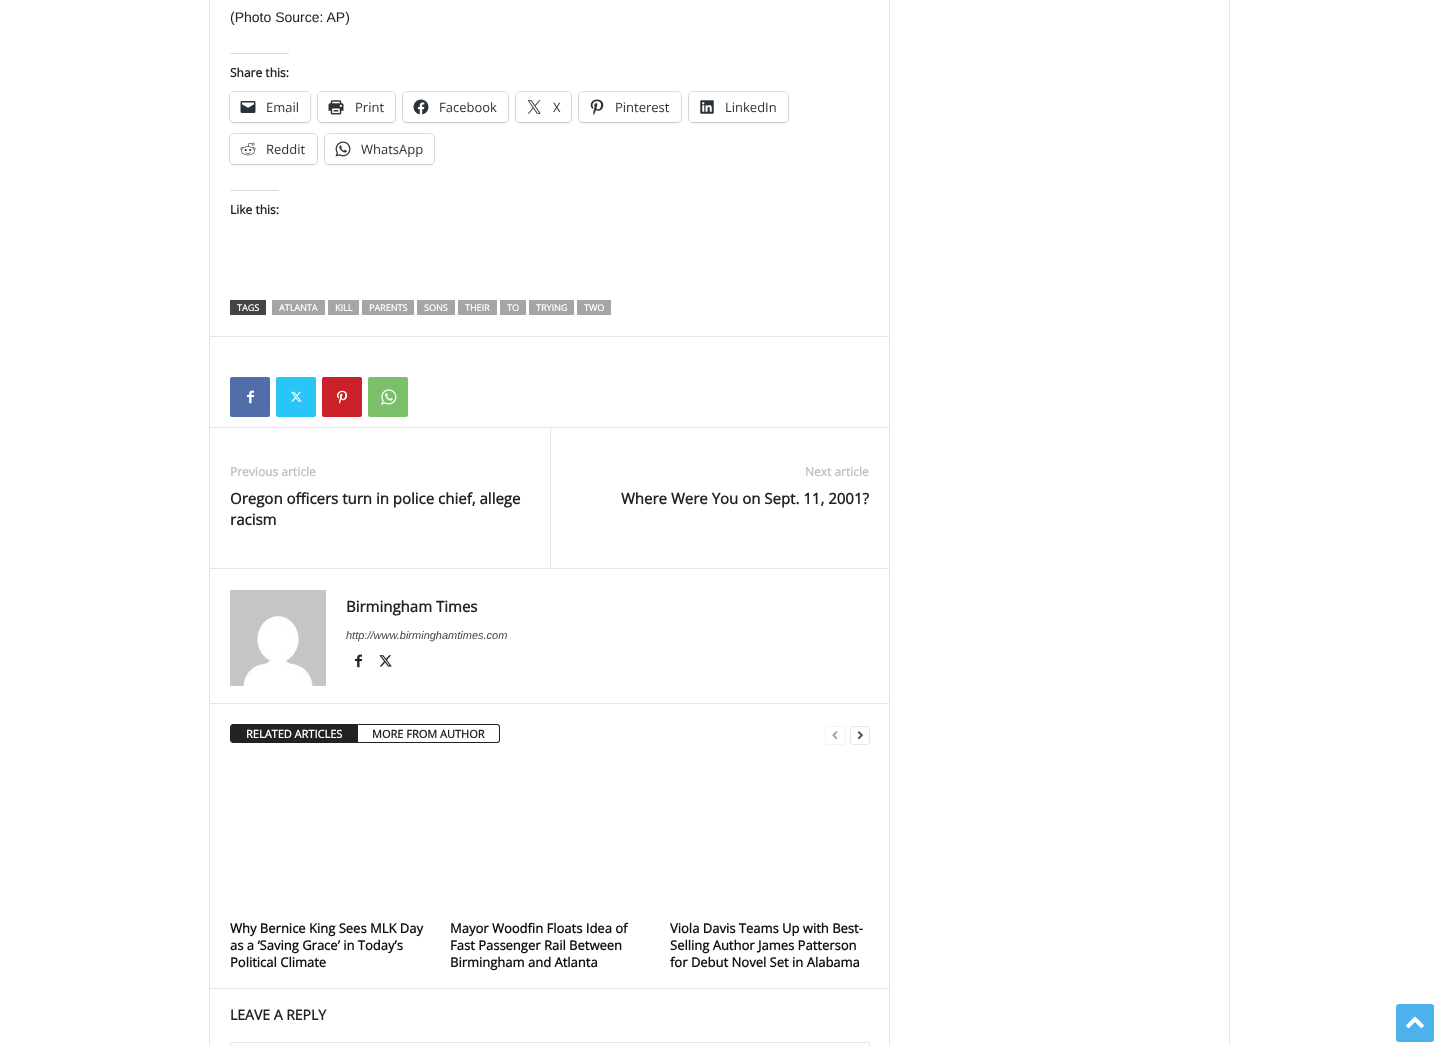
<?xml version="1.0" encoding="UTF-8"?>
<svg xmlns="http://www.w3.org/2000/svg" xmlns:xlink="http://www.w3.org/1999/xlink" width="1439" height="1046">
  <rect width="100%" height="100%" fill="#ffffff" />
  <rect x="209" width="1" height="1046" fill="#e6e6e6" />
  <rect x="230" y="53" width="59" height="1" fill="#dcdcde" />
  <rect x="229.5" y="91.5" width="81" height="31" rx="4.5" fill="none" stroke="#e0e0e0" />
  <rect x="230" y="93" width="80" height="30" rx="4" fill="#000000" fill-opacity="0.12" filter="blur(1px)" />
  <rect x="230" y="92" width="80" height="30" rx="4" fill="#ffffff" />
  <image x="240" y="101" width="16" height="12" xlink:href="image1.png" />
  <rect x="317.5" y="91.5" width="78" height="31" rx="4.5" fill="none" stroke="#e0e0e0" />
  <rect x="318" y="93" width="77" height="30" rx="4" fill="#000000" fill-opacity="0.12" filter="blur(1px)" />
  <rect x="318" y="92" width="77" height="30" rx="4" fill="#ffffff" />
  <image x="328" y="100" width="16" height="15" xlink:href="image2.png" />
  <rect x="402.5" y="91.5" width="106" height="31" rx="4.5" fill="none" stroke="#e0e0e0" />
  <rect x="403" y="93" width="105" height="30" rx="4" fill="#000000" fill-opacity="0.12" filter="blur(1px)" />
  <rect x="403" y="92" width="105" height="30" rx="4" fill="#ffffff" />
  <image x="413" y="99" width="16" height="16" xlink:href="image3.png" />
  <rect x="515.5" y="91.5" width="56" height="31" rx="4.5" fill="none" stroke="#e0e0e0" />
  <rect x="516" y="93" width="55" height="30" rx="4" fill="#000000" fill-opacity="0.12" filter="blur(1px)" />
  <rect x="516" y="92" width="55" height="30" rx="4" fill="#ffffff" />
  <image x="527" y="100" width="14" height="14" xlink:href="image4.png" />
  <rect x="578.5" y="91.5" width="103" height="31" rx="4.5" fill="none" stroke="#e0e0e0" />
  <rect x="579" y="93" width="102" height="30" rx="4" fill="#000000" fill-opacity="0.12" filter="blur(1px)" />
  <rect x="579" y="92" width="102" height="30" rx="4" fill="#ffffff" />
  <image x="590" y="99" width="14" height="16" xlink:href="image5.png" />
  <rect x="688.5" y="91.5" width="100" height="31" rx="4.5" fill="none" stroke="#e0e0e0" />
  <rect x="689" y="93" width="99" height="30" rx="4" fill="#000000" fill-opacity="0.12" filter="blur(1px)" />
  <rect x="689" y="92" width="99" height="30" rx="4" fill="#ffffff" />
  <image x="700" y="100" width="14" height="14" xlink:href="image6.png" />
  <rect x="229.5" y="133.5" width="88" height="31" rx="4.5" fill="none" stroke="#e0e0e0" />
  <rect x="230" y="135" width="87" height="30" rx="4" fill="#000000" fill-opacity="0.12" filter="blur(1px)" />
  <rect x="230" y="134" width="87" height="30" rx="4" fill="#ffffff" />
  <image x="240" y="142" width="16" height="14" xlink:href="image7.png" />
  <rect x="324.5" y="133.5" width="110" height="31" rx="4.5" fill="none" stroke="#e0e0e0" />
  <rect x="325" y="135" width="109" height="30" rx="4" fill="#000000" fill-opacity="0.12" filter="blur(1px)" />
  <rect x="325" y="134" width="109" height="30" rx="4" fill="#ffffff" />
  <image x="335" y="141" width="16" height="16" xlink:href="image8.png" />
  <rect x="230" y="190" width="49" height="1" fill="#dcdcde" />
  <rect x="230" y="300" width="36" height="15" fill="#444444" />
  <rect x="272" y="300" width="53" height="15" fill="#a5a5a5" />
  <rect x="328" y="300" width="31" height="15" fill="#a5a5a5" />
  <rect x="362" y="300" width="52" height="15" fill="#a5a5a5" />
  <rect x="417" y="300" width="38" height="15" fill="#a5a5a5" />
  <rect x="458" y="300" width="39" height="15" fill="#a5a5a5" />
  <rect x="500" y="300" width="26" height="15" fill="#a5a5a5" />
  <rect x="529" y="300" width="45" height="15" fill="#a5a5a5" />
  <rect x="577" y="300" width="34" height="15" fill="#a5a5a5" />
  <rect x="210" y="336" width="679" height="1" fill="#e6e6e6" />
  <rect x="230" y="377" width="40" height="40" rx="2" fill="#516eab" />
  <image x="247" y="390" width="7" height="14" xlink:href="image9.png" />
  <rect x="276" y="377" width="40" height="40" rx="2" fill="#29c5f6" />
  <image x="291" y="391" width="11" height="11" xlink:href="image10.png" />
  <rect x="322" y="377" width="40" height="40" rx="2" fill="#ca212a" />
  <image x="337" y="390" width="11" height="14" xlink:href="image11.png" />
  <rect x="368" y="377" width="40" height="40" rx="2" fill="#7bbf6a" />
  <image x="381" y="389" width="16" height="16" xlink:href="image12.png" />
  <rect x="210" y="427" width="679" height="1" fill="#e6e6e6" />
  <rect x="550" y="428" width="1" height="140" fill="#e6e6e6" />
  <rect x="210" y="568" width="679" height="1" fill="#e6e6e6" />
  <image x="230" y="590" width="96" height="96" xlink:href="image13.png" />
  <image x="355" y="654" width="7" height="14" xlink:href="image14.png" />
  <image x="379" y="655" width="13" height="12" xlink:href="image15.png" />
  <rect x="210" y="703" width="679" height="1" fill="#e6e6e6" />
  <path d="M 233 724.5 h 124.5 v 18 h -124.5 c -1.5 0 -2.5 -1 -2.5 -2.5 v -13 c 0 -1.5 1 -2.5 2.5 -2.5 z" fill="#222222" stroke="#222222" />
  <path d="M 358 724 h 139 c 2 0 3 1 3 3 v 13 c 0 2 -1 3 -3 3 h -139 z m 0 1 h 139 c 1 0 2 1 2 2 v 13 c 0 1 -1 2 -2 2 h -139 z" fill="#222222" fill-rule="evenodd" />
  <rect x="825.5" y="726.5" width="20" height="18" rx="2.5" fill="none" stroke="#f3f3f3" />
  <image x="832" y="731" width="6" height="9" xlink:href="image16.png" />
  <rect x="850.5" y="726.5" width="19" height="18" rx="2.5" fill="none" stroke="#e6e6e6" />
  <image x="857" y="731" width="6" height="9" xlink:href="image17.png" />
  <rect x="210" y="988" width="679" height="1" fill="#e6e6e6" />
  <rect x="230.5" y="1042.5" width="639" height="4" fill="none" stroke="#e6e6e6" />
  <rect x="889" width="1" height="1046" fill="#e6e6e6" />
  <rect x="1229" width="1" height="1046" fill="#e6e6e6" />
  <rect x="1396" y="1004" width="38" height="38" rx="3" fill="#4db2ec" />
  <image x="1406" y="1016" width="18" height="13" xlink:href="image18.png" />
  <text x="230" y="22" style="font-family: Liberation Sans; font-size: 14px; fill: #222222">(Photo Source: AP)</text>
  <text x="230" y="77" style="font-family: Open Sans; font-size: 12px; font-weight: bold; fill: #222222">Share this:</text>
  <text x="266" y="112" style="font-family: Open Sans; font-size: 13px; fill: #2c3338">Email</text>
  <text x="355" y="112" style="font-family: Open Sans; font-size: 13px; fill: #2c3338">Print</text>
  <text x="439" y="112" style="font-family: Open Sans; font-size: 13px; fill: #2c3338">Facebook</text>
  <text x="553" y="112" style="font-family: Open Sans; font-size: 13px; fill: #2c3338">X</text>
  <text x="615" y="112" style="font-family: Open Sans; font-size: 13px; fill: #2c3338">Pinterest</text>
  <text x="725" y="112" style="font-family: Open Sans; font-size: 13px; fill: #2c3338">LinkedIn</text>
  <text x="266" y="154" style="font-family: Open Sans; font-size: 13px; fill: #2c3338">Reddit</text>
  <text x="361" y="154" style="font-family: Open Sans; font-size: 13px; fill: #2c3338">WhatsApp</text>
  <text x="230" y="214" style="font-family: Open Sans; font-size: 12px; font-weight: bold; fill: #222222">Like this:</text>
  <text x="237" y="311" style="font-family: Open Sans; font-size: 9px; font-weight: bold; fill: #ffffff">TAGS</text>
  <text x="279" y="311" style="font-family: Open Sans; font-size: 9px; font-weight: bold; fill: #ffffff">ATLANTA</text>
  <text x="335" y="311" style="font-family: Open Sans; font-size: 9px; font-weight: bold; fill: #ffffff">KILL</text>
  <text x="369" y="311" style="font-family: Open Sans; font-size: 9px; font-weight: bold; fill: #ffffff">PARENTS</text>
  <text x="424" y="311" style="font-family: Open Sans; font-size: 9px; font-weight: bold; fill: #ffffff">SONS</text>
  <text x="465" y="311" style="font-family: Open Sans; font-size: 9px; font-weight: bold; fill: #ffffff">THEIR</text>
  <text x="507" y="311" style="font-family: Open Sans; font-size: 9px; font-weight: bold; fill: #ffffff">TO</text>
  <text x="536" y="311" style="font-family: Open Sans; font-size: 9px; font-weight: bold; fill: #ffffff">TRYING</text>
  <text x="584" y="311" style="font-family: Open Sans; font-size: 9px; font-weight: bold; fill: #ffffff">TWO</text>
  <text x="230" y="476" style="font-family: Open Sans; font-size: 12px; font-weight: bold; fill: #c1c1c1">Previous article</text>
  <text x="230" y="504" style="font-family: Open Sans; font-size: 15px; font-weight: bold; fill: #222222">Oregon officers turn in police chief, allege</text>
  <text x="230" y="525" style="font-family: Open Sans; font-size: 15px; font-weight: bold; fill: #222222">racism</text>
  <text x="805" y="476" style="font-family: Open Sans; font-size: 12px; font-weight: bold; fill: #c1c1c1">Next article</text>
  <text x="621" y="504" style="font-family: Open Sans; font-size: 15px; font-weight: bold; fill: #222222">Where Were You on Sept. 11, 2001?</text>
  <text x="346" y="612" style="font-family: Open Sans; font-size: 15px; font-weight: bold; fill: #222222">Birmingham Times</text>
  <text x="346" y="639" style="font-family: Liberation Sans; font-size: 11px; font-style: italic; fill: #444444">http://www.birminghamtimes.com</text>
  <text x="246" y="738" style="font-family: Open Sans; font-size: 11px; font-weight: bold; fill: #ffffff">RELATED ARTICLES</text>
  <text x="372" y="738" style="font-family: Open Sans; font-size: 11px; font-weight: bold; fill: #222222">MORE FROM AUTHOR</text>
  <text x="230" y="933" style="font-family: Open Sans; font-size: 13px; font-weight: bold; fill: #111111">Why Bernice King Sees MLK Day</text>
  <text x="230" y="950" style="font-family: Open Sans; font-size: 13px; font-weight: bold; fill: #111111">as a ‘Saving Grace’ in Today’s</text>
  <text x="230" y="967" style="font-family: Open Sans; font-size: 13px; font-weight: bold; fill: #111111">Political Climate</text>
  <text x="450" y="933" style="font-family: Open Sans; font-size: 13px; font-weight: bold; fill: #111111">Mayor Woodfin Floats Idea of</text>
  <text x="450" y="950" style="font-family: Open Sans; font-size: 13px; font-weight: bold; fill: #111111">Fast Passenger Rail Between</text>
  <text x="450" y="967" style="font-family: Open Sans; font-size: 13px; font-weight: bold; fill: #111111">Birmingham and Atlanta</text>
  <text x="670" y="933" style="font-family: Open Sans; font-size: 13px; font-weight: bold; fill: #111111">Viola Davis Teams Up with Best-</text>
  <text x="670" y="950" style="font-family: Open Sans; font-size: 13px; font-weight: bold; fill: #111111">Selling Author James Patterson</text>
  <text x="670" y="967" style="font-family: Open Sans; font-size: 13px; font-weight: bold; fill: #111111">for Debut Novel Set in Alabama</text>
  <text x="230" y="1020" style="font-family: Open Sans; font-size: 14px; font-weight: bold; fill: #222222">LEAVE A REPLY</text>
</svg>
